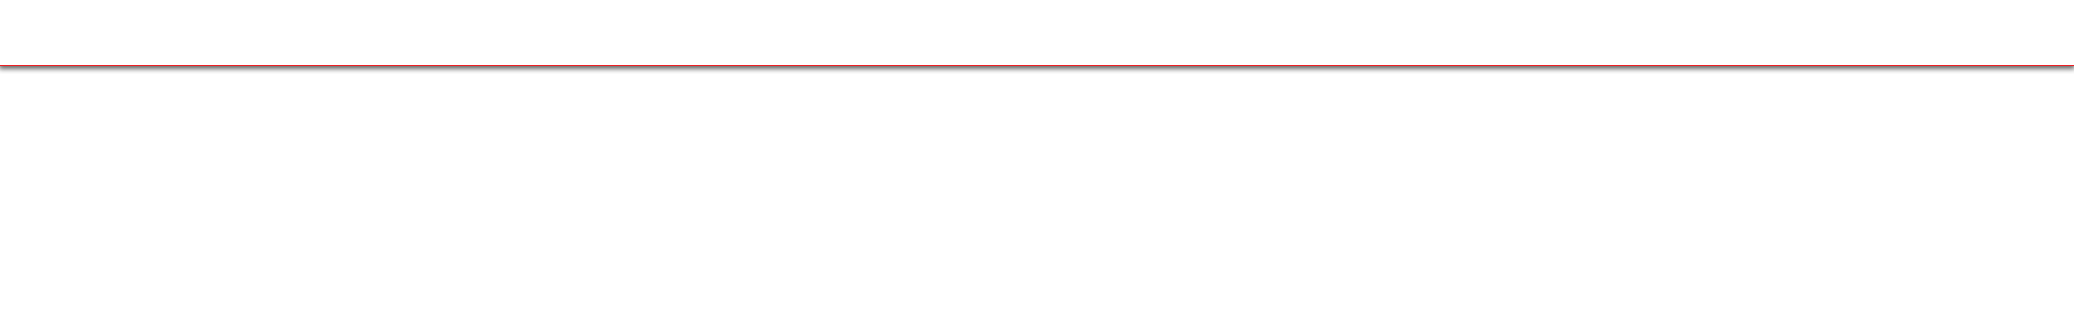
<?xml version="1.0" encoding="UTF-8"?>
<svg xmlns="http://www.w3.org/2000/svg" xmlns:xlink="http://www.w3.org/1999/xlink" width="2074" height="321">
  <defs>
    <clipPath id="clip1"><rect x="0" y="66" width="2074" height="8" /></clipPath>
  </defs>
  <rect width="100%" height="100%" fill="#ffffff" />
  <g clip-path="url(#clip1)">
    <rect x="-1" y="1" width="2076" height="68" fill="#666666" filter="blur(2.5px)" />
  </g>
  <rect y="65" width="2074" height="1" fill="#ed1f24" />
</svg>
